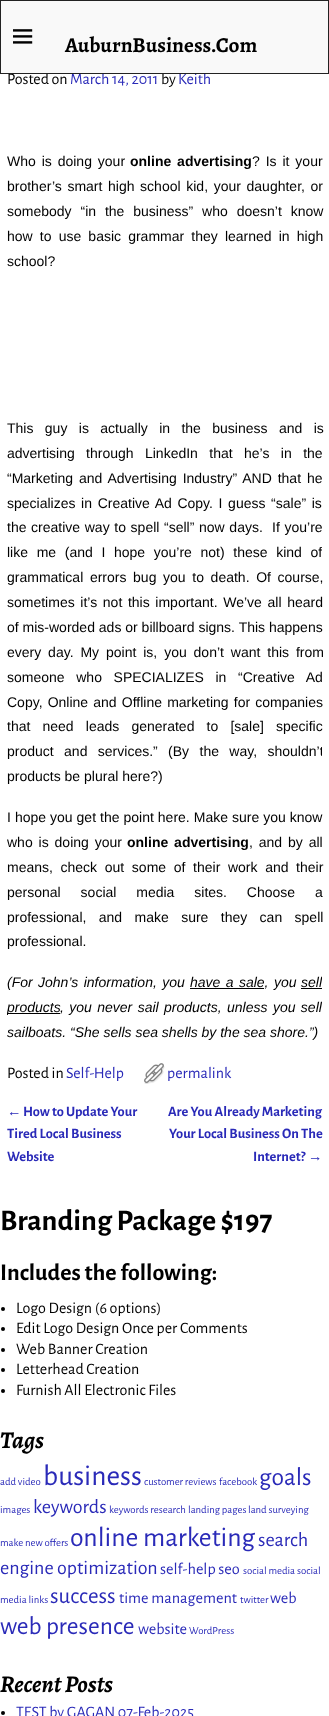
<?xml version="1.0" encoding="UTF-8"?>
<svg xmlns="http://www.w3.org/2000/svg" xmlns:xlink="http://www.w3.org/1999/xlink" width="329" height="1716">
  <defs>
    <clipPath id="clip1"><rect x="7" width="315" height="1086" /></clipPath>
  </defs>
  <rect width="100%" height="100%" fill="#ffffff" />
  <rect x="190" y="988" width="74" height="1" fill="#000000" />
  <rect x="301" y="988" width="21" height="1" fill="#000000" />
  <rect x="7" y="1013" width="53" height="1" fill="#000000" />
  <image x="144" y="1063" width="21" height="21" xlink:href="image2.png" />
  <circle cx="3" cy="1309" r="2" fill="#000000" />
  <circle cx="3" cy="1329" r="2" fill="#000000" />
  <circle cx="3" cy="1350" r="2" fill="#000000" />
  <circle cx="3" cy="1370" r="2" fill="#000000" />
  <circle cx="3" cy="1391" r="2" fill="#000000" />
  <circle cx="3" cy="1713" r="2" fill="#000000" />
  <text x="7" y="84" style="font-family: Alegreya Sans; font-size: 16px; fill: #000000">Posted on</text>
  <text x="70" y="84" style="font-family: Alegreya Sans; font-size: 16px; fill: #2a2ab8">March 14, 2011</text>
  <text x="161" y="84" style="font-family: Alegreya Sans; font-size: 16px; fill: #000000">by</text>
  <text x="178" y="84" style="font-family: Alegreya Sans; font-size: 16px; fill: #2a2ab8">Keith</text>
  <rect x="0.5" y="0.5" width="328" height="73" fill="#f9f9f9" stroke="#222222" />
  <text x="65" y="52" style="font-family: Alegreya; font-size: 21.25px; font-weight: bold; fill: #000000">AuburnBusiness.Com</text>
  <image x="13" y="29" width="20" height="15" xlink:href="image1.png" />
  <text x="7" y="166" word-spacing="2" style="font-family: Liberation Sans; font-size: 14px; fill: #000000">Who is doing your</text>
  <text x="130" y="166" word-spacing="2" style="font-family: Liberation Sans; font-size: 14px; font-weight: bold; fill: #000000">online advertising</text>
  <text x="252" y="166" word-spacing="2" style="font-family: Liberation Sans; font-size: 14px; fill: #000000">? Is it your</text>
  <text x="7" y="191" word-spacing="1.75" style="font-family: Liberation Sans; font-size: 14px; fill: #000000">brother’s smart high school kid, your daughter, or</text>
  <text x="7" y="216" word-spacing="5" style="font-family: Liberation Sans; font-size: 14px; fill: #000000">somebody “in the business” who doesn’t know</text>
  <text x="7" y="241" word-spacing="3.25" style="font-family: Liberation Sans; font-size: 14px; fill: #000000">how to use basic grammar they learned in high</text>
  <text x="7" y="266" style="font-family: Liberation Sans; font-size: 14px; fill: #000000">school?</text>
  <text x="7" y="433" word-spacing="7.5" style="font-family: Liberation Sans; font-size: 14px; fill: #000000">This guy is actually in the business and is</text>
  <text x="7" y="458" word-spacing="7.5" style="font-family: Liberation Sans; font-size: 14px; fill: #000000">advertising through LinkedIn that he’s in the</text>
  <text x="7" y="483" word-spacing="2" style="font-family: Liberation Sans; font-size: 14px; fill: #000000">“Marketing and Advertising Industry” AND that he</text>
  <text x="7" y="508" word-spacing="1.75" style="font-family: Liberation Sans; font-size: 14px; fill: #000000">specializes in Creative Ad Copy. I guess “sale” is</text>
  <text x="7" y="532" word-spacing="0.75" style="font-family: Liberation Sans; font-size: 14px; fill: #000000" xml:space="preserve">the creative way to spell “sell” now days.  If you’re</text>
  <g clip-path="url(#clip1)">
    <text x="7" y="557" word-spacing="4.75" style="font-family: Liberation Sans; font-size: 14px; fill: #000000">like me (and I hope you’re not) these kind of</text>
  </g>
  <text x="7" y="582" word-spacing="2.75" style="font-family: Liberation Sans; font-size: 14px; fill: #000000">grammatical errors bug you to death. Of course,</text>
  <text x="7" y="607" word-spacing="1.75" style="font-family: Liberation Sans; font-size: 14px; fill: #000000">sometimes it’s not this important. We’ve all heard</text>
  <text x="7" y="632" style="font-family: Liberation Sans; font-size: 14px; fill: #000000">of mis-worded ads or billboard signs. This happens</text>
  <text x="7" y="657" word-spacing="3" style="font-family: Liberation Sans; font-size: 14px; fill: #000000">every day. My point is, you don’t want this from</text>
  <text x="7" y="682" word-spacing="7.75" style="font-family: Liberation Sans; font-size: 14px; fill: #000000">someone who SPECIALIZES in “Creative Ad</text>
  <text x="7" y="707" word-spacing="1.25" style="font-family: Liberation Sans; font-size: 14px; fill: #000000">Copy, Online and Offline marketing for companies</text>
  <text x="7" y="731" word-spacing="8.25" style="font-family: Liberation Sans; font-size: 14px; fill: #000000">that need leads generated to [sale] specific</text>
  <g clip-path="url(#clip1)">
    <text x="7" y="756" word-spacing="6.5" style="font-family: Liberation Sans; font-size: 14px; fill: #000000">product and services.” (By the way, shouldn’t</text>
  </g>
  <text x="7" y="781" style="font-family: Liberation Sans; font-size: 14px; fill: #000000">products be plural here?)</text>
  <text x="7" y="822" word-spacing="0.1" style="font-family: Liberation Sans; font-size: 14px; fill: #000000">I hope you get the point here. Make sure you know</text>
  <text x="7" y="847" word-spacing="2" style="font-family: Liberation Sans; font-size: 14px; fill: #000000">who is doing your</text>
  <text x="127" y="847" word-spacing="2" style="font-family: Liberation Sans; font-size: 14px; font-weight: bold; fill: #000000">online advertising</text>
  <text x="249" y="847" word-spacing="2" style="font-family: Liberation Sans; font-size: 14px; fill: #000000">, and by all</text>
  <text x="7" y="872" word-spacing="3.75" style="font-family: Liberation Sans; font-size: 14px; fill: #000000">means, check out some of their work and their</text>
  <text x="7" y="897" word-spacing="16" style="font-family: Liberation Sans; font-size: 14px; fill: #000000">personal social media sites. Choose a</text>
  <text x="7" y="922" word-spacing="8.5" style="font-family: Liberation Sans; font-size: 14px; fill: #000000">professional, and make sure they can spell</text>
  <text x="7" y="946" style="font-family: Liberation Sans; font-size: 14px; fill: #000000">professional.</text>
  <text x="7" y="987" word-spacing="1.5" style="font-family: Liberation Sans; font-size: 14px; font-style: italic; fill: #000000">(For John’s information, you</text>
  <text x="190" y="987" word-spacing="1.5" style="font-family: Liberation Sans; font-size: 14px; font-style: italic; fill: #000000">have a sale, you</text>
  <g clip-path="url(#clip1)">
    <text x="301" y="987" style="font-family: Liberation Sans; font-size: 14px; font-style: italic; fill: #000000">sell</text>
    <text x="7" y="1012" style="font-family: Liberation Sans; font-size: 14px; font-style: italic; fill: #000000">products</text>
    <text x="60" y="1012" word-spacing="1.5" style="font-family: Liberation Sans; font-size: 14px; font-style: italic; fill: #000000">, you never sail products, unless you sell</text>
  </g>
  <text x="7" y="1037" style="font-family: Liberation Sans; font-size: 14px; font-style: italic; fill: #000000">sailboats. “She sells sea shells by the sea shore.”)</text>
  <text x="7" y="1078" style="font-family: Alegreya Sans; font-size: 16px; fill: #000000">Posted in</text>
  <text x="66" y="1078" style="font-family: Alegreya Sans; font-size: 16px; fill: #2a2ab8">Self-Help</text>
  <text x="167" y="1078" style="font-family: Alegreya Sans; font-size: 16px; fill: #2a2ab8">permalink</text>
  <text x="7" y="1116" style="font-family: Liberation Sans; font-size: 14.4px; fill: #2a2ab8">←</text>
  <text x="23" y="1116" style="font-family: Alegreya Sans; font-size: 14.4px; font-weight: bold; fill: #2a2ab8">How to Update Your</text>
  <text x="7" y="1138" style="font-family: Alegreya Sans; font-size: 14.4px; font-weight: bold; fill: #2a2ab8">Tired Local Business</text>
  <text x="7" y="1161" style="font-family: Alegreya Sans; font-size: 14.4px; font-weight: bold; fill: #2a2ab8">Website</text>
  <text x="168" y="1116" style="font-family: Alegreya Sans; font-size: 14.4px; font-weight: bold; fill: #2a2ab8">Are You Already Marketing</text>
  <text x="169" y="1138" style="font-family: Alegreya Sans; font-size: 14.4px; font-weight: bold; fill: #2a2ab8">Your Local Business On The</text>
  <text x="253" y="1161" style="font-family: Alegreya Sans; font-size: 14.4px; font-weight: bold; fill: #2a2ab8">Internet?</text>
  <text x="308" y="1161" style="font-family: Liberation Sans; font-size: 14.4px; fill: #2a2ab8">→</text>
  <text x="0" y="1230" style="font-family: Alegreya Sans; font-size: 30px; font-weight: bold; fill: #000000">Branding Package $197</text>
  <text x="0" y="1280" style="font-family: Alegreya Sans; font-size: 24px; font-weight: bold; fill: #000000">Includes the following:</text>
  <text x="16" y="1313" style="font-family: Alegreya Sans; font-size: 16px; fill: #000000">Logo Design (6 options)</text>
  <text x="16" y="1333" style="font-family: Alegreya Sans; font-size: 16px; fill: #000000">Edit Logo Design Once per Comments</text>
  <text x="16" y="1354" style="font-family: Alegreya Sans; font-size: 16px; fill: #000000">Web Banner Creation</text>
  <text x="16" y="1374" style="font-family: Alegreya Sans; font-size: 16px; fill: #000000">Letterhead Creation</text>
  <text x="16" y="1395" style="font-family: Alegreya Sans; font-size: 16px; fill: #000000">Furnish All Electronic Files</text>
  <text x="0" y="1448" style="font-family: Alegreya; font-size: 24px; font-weight: bold; font-style: italic; fill: #000000">Tags</text>
  <text x="0" y="1485" style="font-family: Alegreya Sans; font-size: 10.75px; fill: #2a2ab8">add video</text>
  <text x="43" y="1485" style="font-family: Alegreya Sans; font-size: 29.5px; fill: #2a2ab8">business</text>
  <text x="144" y="1485" style="font-family: Alegreya Sans; font-size: 10.75px; fill: #2a2ab8">customer reviews</text>
  <text x="219" y="1485" style="font-family: Alegreya Sans; font-size: 10.75px; fill: #2a2ab8">facebook</text>
  <text x="259" y="1485" style="font-family: Alegreya Sans; font-size: 25.5px; fill: #2a2ab8">goals</text>
  <text x="0" y="1513" style="font-family: Alegreya Sans; font-size: 10.75px; fill: #2a2ab8">images</text>
  <text x="33" y="1513" style="font-family: Alegreya Sans; font-size: 20px; fill: #2a2ab8">keywords</text>
  <text x="109" y="1513" style="font-family: Alegreya Sans; font-size: 10.75px; fill: #2a2ab8">keywords research</text>
  <text x="188" y="1513" style="font-family: Alegreya Sans; font-size: 10.75px; fill: #2a2ab8">landing pages</text>
  <text x="248" y="1513" style="font-family: Alegreya Sans; font-size: 10.75px; fill: #2a2ab8">land surveying</text>
  <text x="0" y="1546" style="font-family: Alegreya Sans; font-size: 10.75px; fill: #2a2ab8">make new offers</text>
  <text x="70" y="1546" style="font-family: Alegreya Sans; font-size: 27.75px; fill: #2a2ab8">online marketing</text>
  <text x="258" y="1546" style="font-family: Alegreya Sans; font-size: 20px; fill: #2a2ab8">search</text>
  <text x="0" y="1574" style="font-family: Alegreya Sans; font-size: 20px; fill: #2a2ab8">engine optimization</text>
  <text x="160" y="1574" style="font-family: Alegreya Sans; font-size: 16.25px; fill: #2a2ab8">self-help seo</text>
  <text x="243" y="1574" style="font-family: Alegreya Sans; font-size: 10.75px; fill: #2a2ab8">social media</text>
  <text x="297" y="1574" style="font-family: Alegreya Sans; font-size: 10.75px; fill: #2a2ab8">social</text>
  <text x="0" y="1603" style="font-family: Alegreya Sans; font-size: 10.75px; fill: #2a2ab8">media links</text>
  <text x="50" y="1603" style="font-family: Alegreya Sans; font-size: 23px; fill: #2a2ab8">success</text>
  <text x="119" y="1603" style="font-family: Alegreya Sans; font-size: 16.25px; fill: #2a2ab8">time management</text>
  <text x="240" y="1603" style="font-family: Alegreya Sans; font-size: 10.75px; fill: #2a2ab8">twitter</text>
  <text x="270" y="1603" style="font-family: Alegreya Sans; font-size: 16.25px; fill: #2a2ab8">web</text>
  <text x="0" y="1634" style="font-family: Alegreya Sans; font-size: 25.5px; fill: #2a2ab8">web presence</text>
  <text x="138" y="1634" style="font-family: Alegreya Sans; font-size: 16.25px; fill: #2a2ab8">website</text>
  <text x="189" y="1634" style="font-family: Alegreya Sans; font-size: 10.75px; fill: #2a2ab8">WordPress</text>
  <text x="0" y="1692" style="font-family: Alegreya; font-size: 24px; font-weight: bold; font-style: italic; fill: #000000">Recent Posts</text>
  <text x="16" y="1717" style="font-family: Alegreya Sans; font-size: 16px; fill: #2a2ab8">TEST by GAGAN 07-Feb-2025</text>
</svg>
